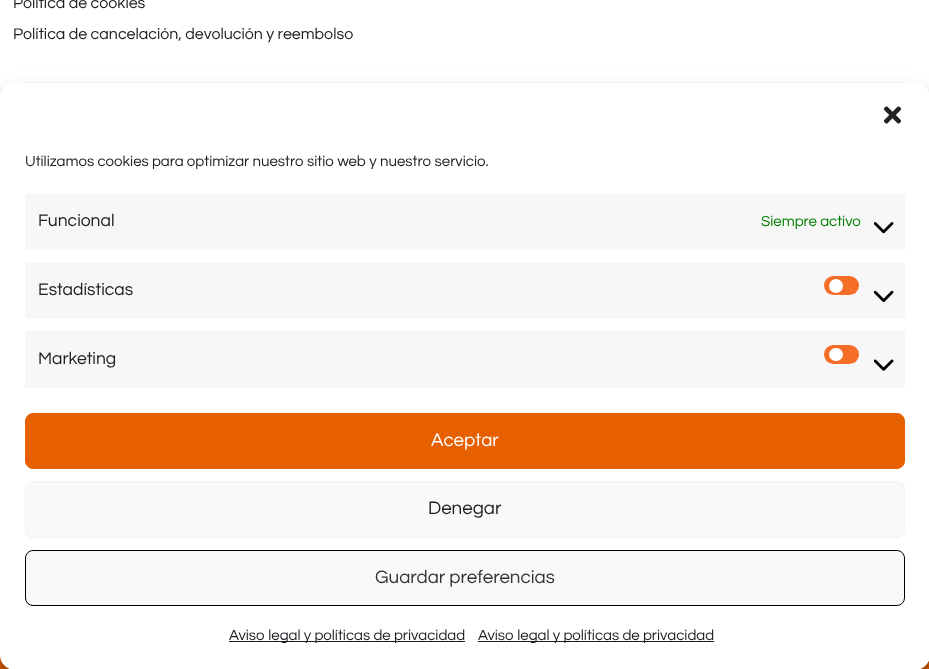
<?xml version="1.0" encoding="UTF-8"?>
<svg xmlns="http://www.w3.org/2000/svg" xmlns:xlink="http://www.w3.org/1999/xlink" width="929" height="669">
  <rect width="100%" height="100%" fill="#ffffff" />
  <rect y="655" width="929" height="14" fill="#e66000" />
  <rect y="90" width="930" height="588" rx="15" fill="#000000" fill-opacity="0.23" filter="blur(4px)" />
  <rect y="95" width="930" height="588" rx="15" fill="#000000" fill-opacity="0.19" filter="blur(12.5px)" />
  <rect y="83" width="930" height="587" rx="15" fill="#ffffff" />
  <image x="883" y="106" width="19" height="18" xlink:href="image1.png" />
  <rect x="25" y="194" width="880" height="56" fill="#f7f7f7" />
  <image x="874" y="222" width="20" height="12" xlink:href="image2.png" />
  <rect x="25" y="263" width="880" height="56" fill="#f7f7f7" />
  <rect x="824" y="276" width="35" height="19" rx="9.5" fill="#f56e28" />
  <circle cx="836" cy="286" r="7" fill="#ffffff" />
  <image x="874" y="290" width="20" height="12" xlink:href="image3.png" />
  <rect x="25" y="331" width="880" height="57" fill="#f7f7f7" />
  <rect x="824" y="345" width="35" height="19" rx="9.5" fill="#f56e28" />
  <rect x="829" y="348" width="14" height="13" rx="6.5" fill="#ffffff" />
  <image x="874" y="359" width="20" height="12" xlink:href="image4.png" />
  <rect x="25.5" y="413.5" width="879" height="55" rx="7.5" fill="#e66000" stroke="#e66000" />
  <rect x="25.5" y="481.5" width="879" height="56" rx="7.5" fill="#f9f9f9" stroke="#f2f2f2" />
  <rect x="25.5" y="550.5" width="879" height="55" rx="7.5" fill="#f9f9f9" stroke="#000000" />
  <rect x="229" y="641" width="236" height="1" fill="#191e23" />
  <rect x="478" y="641" width="236" height="1" fill="#191e23" />
  <text x="13" y="8" style="font-family: Questrial; font-size: 16px; fill: #202020">Política de cookies</text>
  <text x="13" y="39" style="font-family: Questrial; font-size: 16px; fill: #202020">Política de cancelación, devolución y reembolso</text>
  <text x="25" y="166" style="font-family: Questrial; font-size: 15px; fill: #202020">Utilizamos cookies para optimizar nuestro sitio web y nuestro servicio.</text>
  <text x="38" y="226" style="font-family: Questrial; font-size: 17.5px; fill: #202020">Funcional</text>
  <text x="761" y="226" style="font-family: Questrial; font-size: 15px; fill: #008000">Siempre activo</text>
  <text x="38" y="295" style="font-family: Questrial; font-size: 17.5px; fill: #202020">Estadísticas</text>
  <text x="38" y="364" style="font-family: Questrial; font-size: 17.5px; fill: #202020">Marketing</text>
  <text x="431" y="446" style="font-family: Questrial; font-size: 18.75px; fill: #ffffff">Aceptar</text>
  <text x="428" y="514" style="font-family: Questrial; font-size: 18.75px; fill: #202020">Denegar</text>
  <text x="375" y="583" style="font-family: Questrial; font-size: 18.75px; fill: #333333">Guardar preferencias</text>
  <text x="229" y="640" style="font-family: Questrial; font-size: 15px; fill: #191e23">Aviso legal y políticas de privacidad</text>
  <text x="478" y="640" style="font-family: Questrial; font-size: 15px; fill: #191e23">Aviso legal y políticas de privacidad</text>
</svg>
